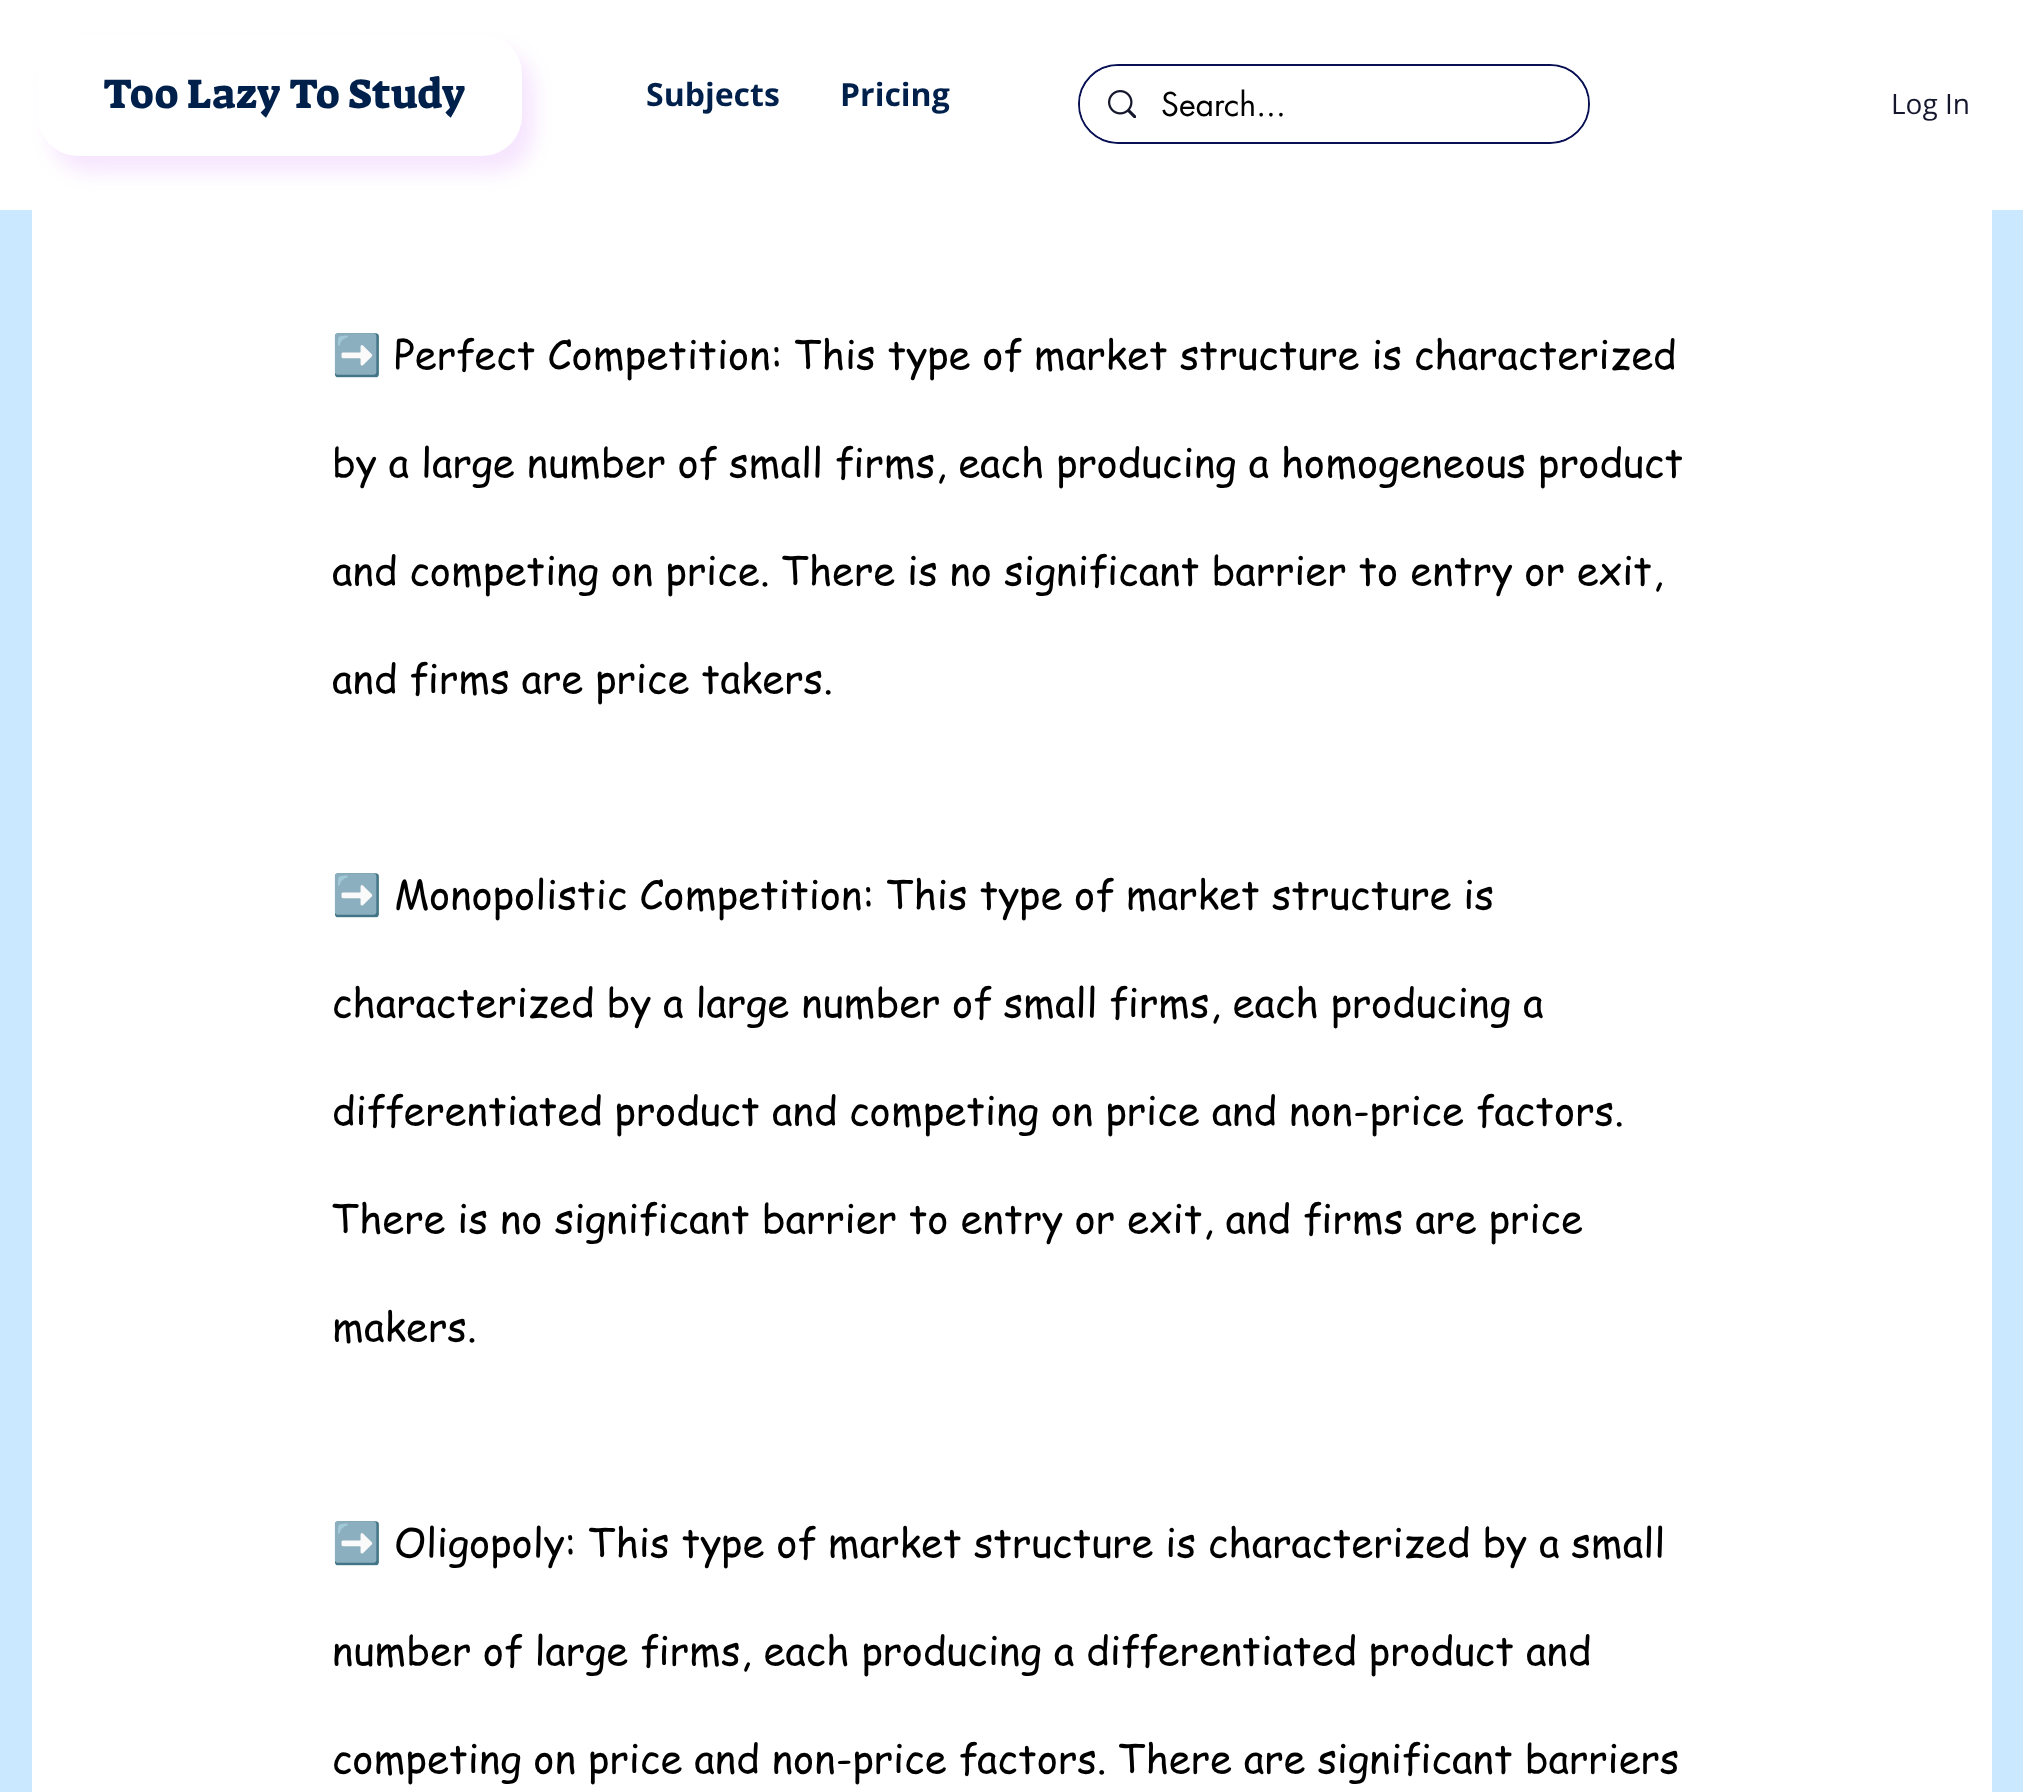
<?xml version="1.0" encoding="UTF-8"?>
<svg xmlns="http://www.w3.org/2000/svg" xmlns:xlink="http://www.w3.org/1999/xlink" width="2023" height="1792">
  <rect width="100%" height="100%" fill="#cae8ff" />
  <rect width="2023" height="210" fill="#ffffff" />
  <rect x="50" y="50" width="484" height="122" rx="40" fill="#a700fa" fill-opacity="0.1" filter="blur(10px)" />
  <rect x="38" y="34" width="484" height="122" rx="40" fill="#ffffff" />
  <rect x="1079" y="65" width="510" height="78" rx="39" fill="none" stroke="#081054" stroke-width="2" />
  <rect x="1080" y="66" width="508" height="76" rx="38" fill="#ffffff" />
  <image x="1108" y="90" width="28" height="28" xlink:href="image1.png" />
  <rect x="32" y="210" width="1960" height="1582" fill="#ffffff" />
  <text x="103" y="108" style="font-family: Suez One; font-size: 42px; fill: #00204c">Too Lazy To Study</text>
  <text x="646" y="106" style="font-family: Open Sans; font-size: 32px; font-weight: bold; fill: #00204c">Subjects</text>
  <text x="840" y="106" style="font-family: Open Sans; font-size: 32px; font-weight: bold; fill: #00204c">Pricing</text>
  <text x="1161" y="116" style="font-family: futura; font-size: 32px; fill: #000000">Search...</text>
  <text x="1891" y="114" style="font-family: Open Sans; font-size: 28px; fill: #15172d">Log In</text>
  <text x="332" y="369" style="font-family: Noto Color Emoji; font-size: 40px; fill: #000000">➡️</text>
  <text x="394" y="369" style="font-family: 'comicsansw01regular'; font-size: 40px; fill: #000000">Perfect Competition: This type of market structure is characterized</text>
  <text x="332" y="477" style="font-family: 'comicsansw01regular'; font-size: 40px; fill: #000000">by a large number of small firms, each producing a homogeneous product</text>
  <text x="332" y="585" style="font-family: 'comicsansw01regular'; font-size: 40px; fill: #000000">and competing on price. There is no significant barrier to entry or exit,</text>
  <text x="332" y="693" style="font-family: 'comicsansw01regular'; font-size: 40px; fill: #000000">and firms are price takers.</text>
  <text x="332" y="909" style="font-family: Noto Color Emoji; font-size: 40px; fill: #000000">➡️</text>
  <text x="394" y="909" style="font-family: 'comicsansw01regular'; font-size: 40px; fill: #000000">Monopolistic Competition: This type of market structure is</text>
  <text x="332" y="1017" style="font-family: 'comicsansw01regular'; font-size: 40px; fill: #000000">characterized by a large number of small firms, each producing a</text>
  <text x="332" y="1125" style="font-family: 'comicsansw01regular'; font-size: 40px; fill: #000000">differentiated product and competing on price and non-price factors.</text>
  <text x="332" y="1233" style="font-family: 'comicsansw01regular'; font-size: 40px; fill: #000000">There is no significant barrier to entry or exit, and firms are price</text>
  <text x="332" y="1341" style="font-family: 'comicsansw01regular'; font-size: 40px; fill: #000000">makers.</text>
  <text x="332" y="1557" style="font-family: Noto Color Emoji; font-size: 40px; fill: #000000">➡️</text>
  <text x="394" y="1557" style="font-family: 'comicsansw01regular'; font-size: 40px; fill: #000000">Oligopoly: This type of market structure is characterized by a small</text>
  <text x="332" y="1665" style="font-family: 'comicsansw01regular'; font-size: 40px; fill: #000000">number of large firms, each producing a differentiated product and</text>
  <text x="332" y="1773" style="font-family: 'comicsansw01regular'; font-size: 40px; fill: #000000">competing on price and non-price factors. There are significant barriers</text>
</svg>
